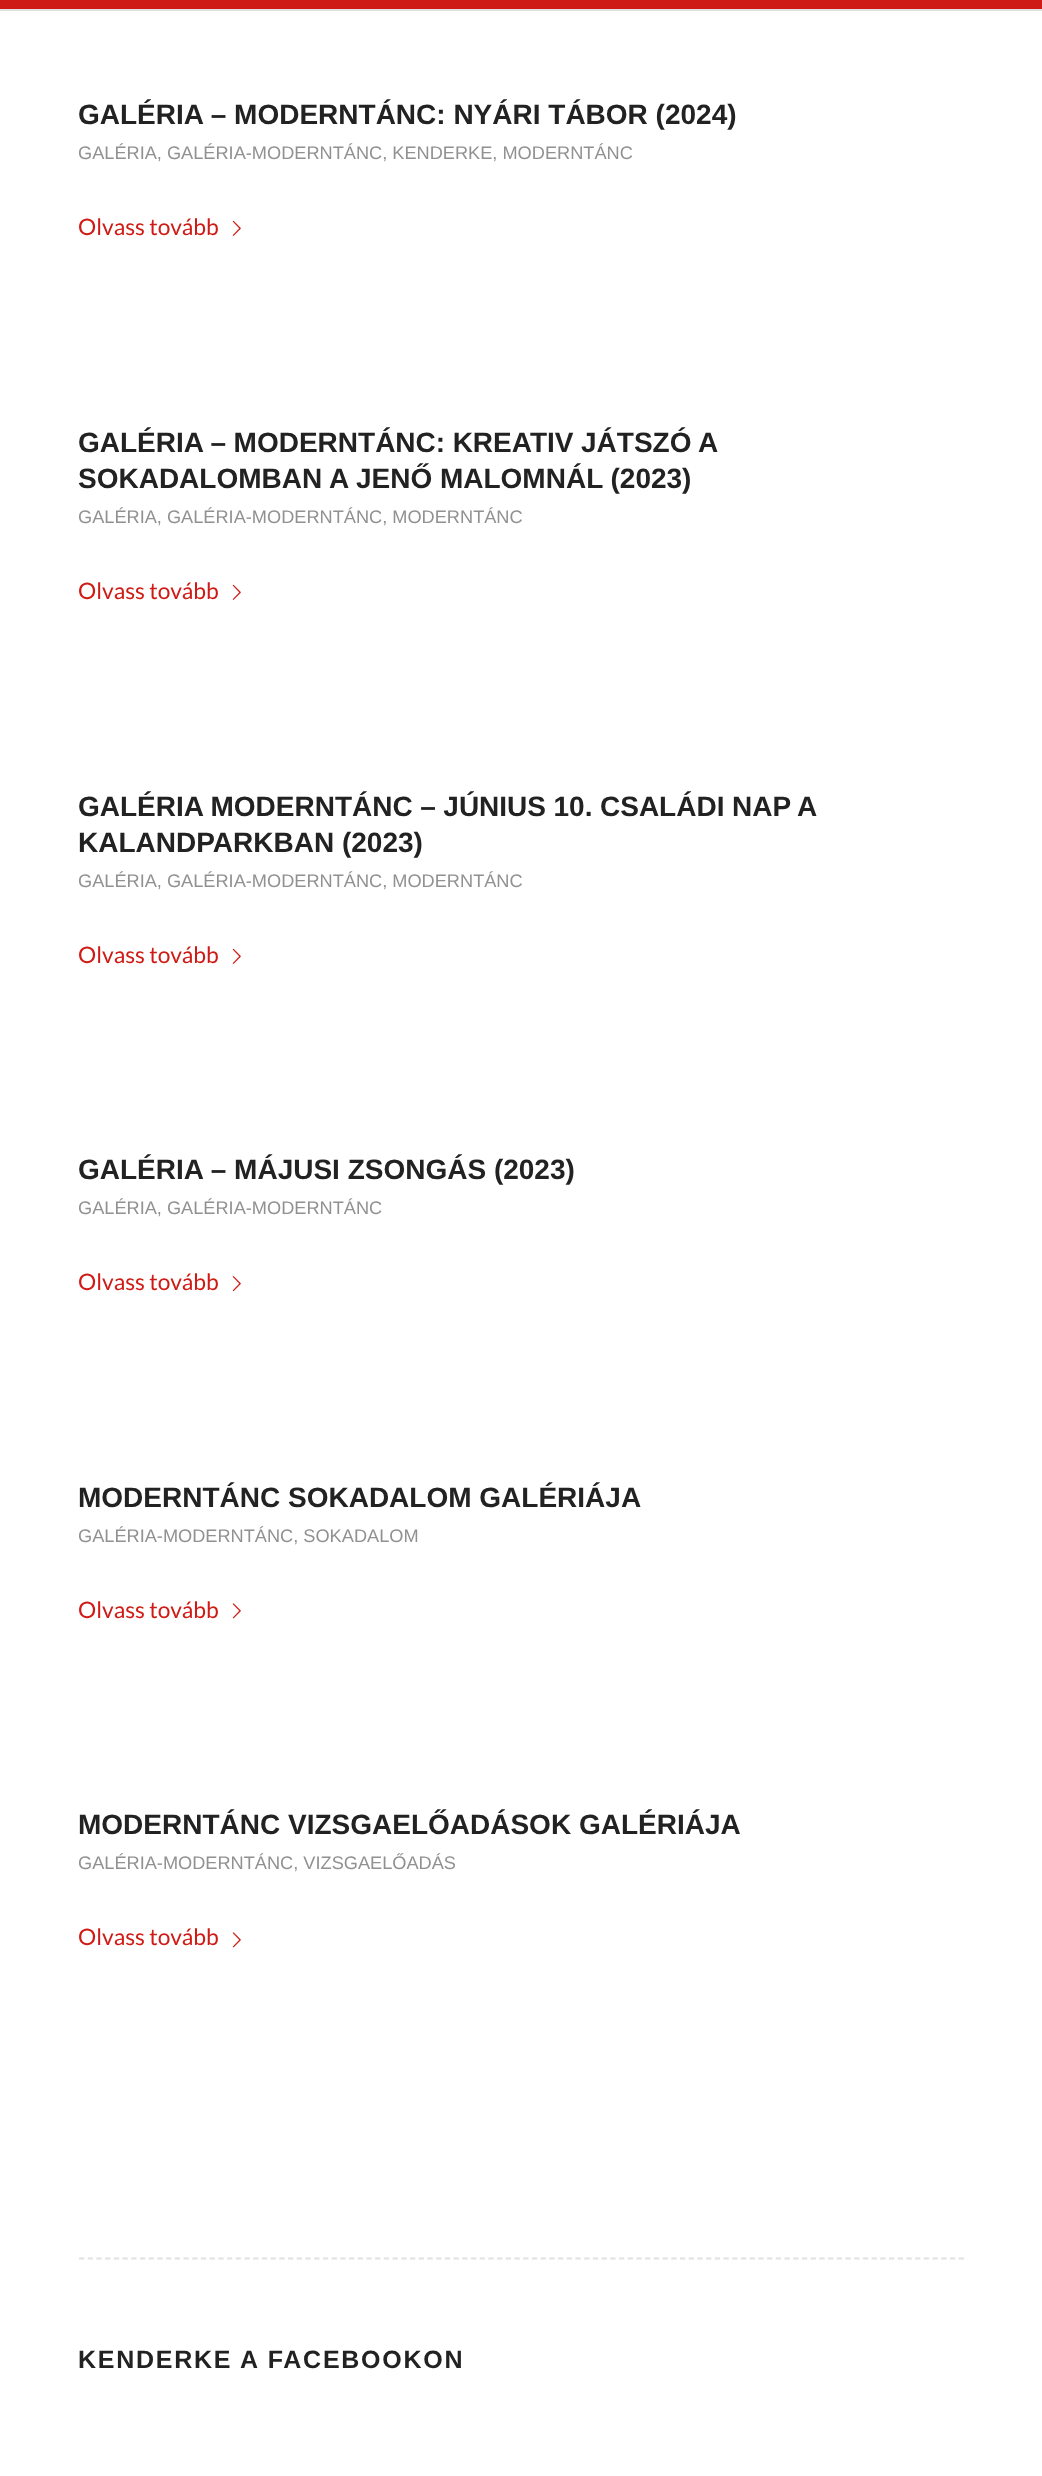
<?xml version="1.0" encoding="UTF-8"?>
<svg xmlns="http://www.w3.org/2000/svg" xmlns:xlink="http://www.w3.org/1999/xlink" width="1042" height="2476">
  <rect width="100%" height="100%" fill="#ffffff" />
  <rect width="1042" height="9" fill="#cf1b15" />
  <rect y="9" width="1042" height="2" fill="#e1e1e1" />
  <image x="232" y="220" width="9" height="16" xlink:href="image1.png" />
  <image x="232" y="584" width="9" height="16" xlink:href="image1.png" />
  <image x="232" y="948" width="9" height="16" xlink:href="image1.png" />
  <image x="232" y="1276" width="9" height="16" xlink:href="image2.png" />
  <image x="232" y="1603" width="9" height="16" xlink:href="image3.png" />
  <image x="232" y="1932" width="9" height="16" xlink:href="image3.png" />
  <path d="M 79 2258.5 h 885" fill="none" stroke="#e1e1e1" stroke-width="1.8" stroke-dasharray="5.25 3.46" />
  <text x="78" y="124" style="font-family: Liberation Sans; font-size: 28px; font-weight: bold; fill: #222222">GALÉRIA – MODERNTÁNC: NYÁRI TÁBOR (2024)</text>
  <text x="78" y="159" style="font-family: Liberation Sans; font-size: 18.2px; fill: #919191">GALÉRIA, GALÉRIA-MODERNTÁNC, KENDERKE, MODERNTÁNC</text>
  <text x="78" y="235" style="font-family: Lato; font-size: 22.75px; fill: #cf1b15">Olvass tovább</text>
  <text x="78" y="452" word-spacing="-0.25" style="font-family: Liberation Sans; font-size: 28px; font-weight: bold; fill: #222222">GALÉRIA – MODERNTÁNC: KREATIV JÁTSZÓ A</text>
  <text x="78" y="488" style="font-family: Liberation Sans; font-size: 28px; font-weight: bold; fill: #222222">SOKADALOMBAN A JENŐ MALOMNÁL (2023)</text>
  <text x="78" y="523" style="font-family: Liberation Sans; font-size: 18.2px; fill: #919191">GALÉRIA, GALÉRIA-MODERNTÁNC, MODERNTÁNC</text>
  <text x="78" y="599" style="font-family: Lato; font-size: 22.75px; fill: #cf1b15">Olvass tovább</text>
  <text x="78" y="816" word-spacing="-0.25" style="font-family: Liberation Sans; font-size: 28px; font-weight: bold; fill: #222222">GALÉRIA MODERNTÁNC – JÚNIUS 10. CSALÁDI NAP A</text>
  <text x="78" y="852" style="font-family: Liberation Sans; font-size: 28px; font-weight: bold; fill: #222222">KALANDPARKBAN (2023)</text>
  <text x="78" y="887" style="font-family: Liberation Sans; font-size: 18.2px; fill: #919191">GALÉRIA, GALÉRIA-MODERNTÁNC, MODERNTÁNC</text>
  <text x="78" y="963" style="font-family: Lato; font-size: 22.75px; fill: #cf1b15">Olvass tovább</text>
  <text x="78" y="1179" style="font-family: Liberation Sans; font-size: 28px; font-weight: bold; fill: #222222">GALÉRIA – MÁJUSI ZSONGÁS (2023)</text>
  <text x="78" y="1214" style="font-family: Liberation Sans; font-size: 18.2px; fill: #919191">GALÉRIA, GALÉRIA-MODERNTÁNC</text>
  <text x="78" y="1290" style="font-family: Lato; font-size: 22.75px; fill: #cf1b15">Olvass tovább</text>
  <text x="78" y="1507" style="font-family: Liberation Sans; font-size: 28px; font-weight: bold; fill: #222222">MODERNTÁNC SOKADALOM GALÉRIÁJA</text>
  <text x="78" y="1542" style="font-family: Liberation Sans; font-size: 18.2px; fill: #919191">GALÉRIA-MODERNTÁNC, SOKADALOM</text>
  <text x="78" y="1618" style="font-family: Lato; font-size: 22.75px; fill: #cf1b15">Olvass tovább</text>
  <text x="78" y="1834" style="font-family: Liberation Sans; font-size: 28px; font-weight: bold; fill: #222222">MODERNTÁNC VIZSGAELŐADÁSOK GALÉRIÁJA</text>
  <text x="78" y="1869" style="font-family: Liberation Sans; font-size: 18.2px; fill: #919191">GALÉRIA-MODERNTÁNC, VIZSGAELŐADÁS</text>
  <text x="78" y="1945" style="font-family: Lato; font-size: 22.75px; fill: #cf1b15">Olvass tovább</text>
  <text x="78" y="2368" style="font-family: Liberation Sans; font-size: 25px; font-weight: bold; letter-spacing: 1.75px; fill: #222222">KENDERKE A FACEBOOKON</text>
</svg>
